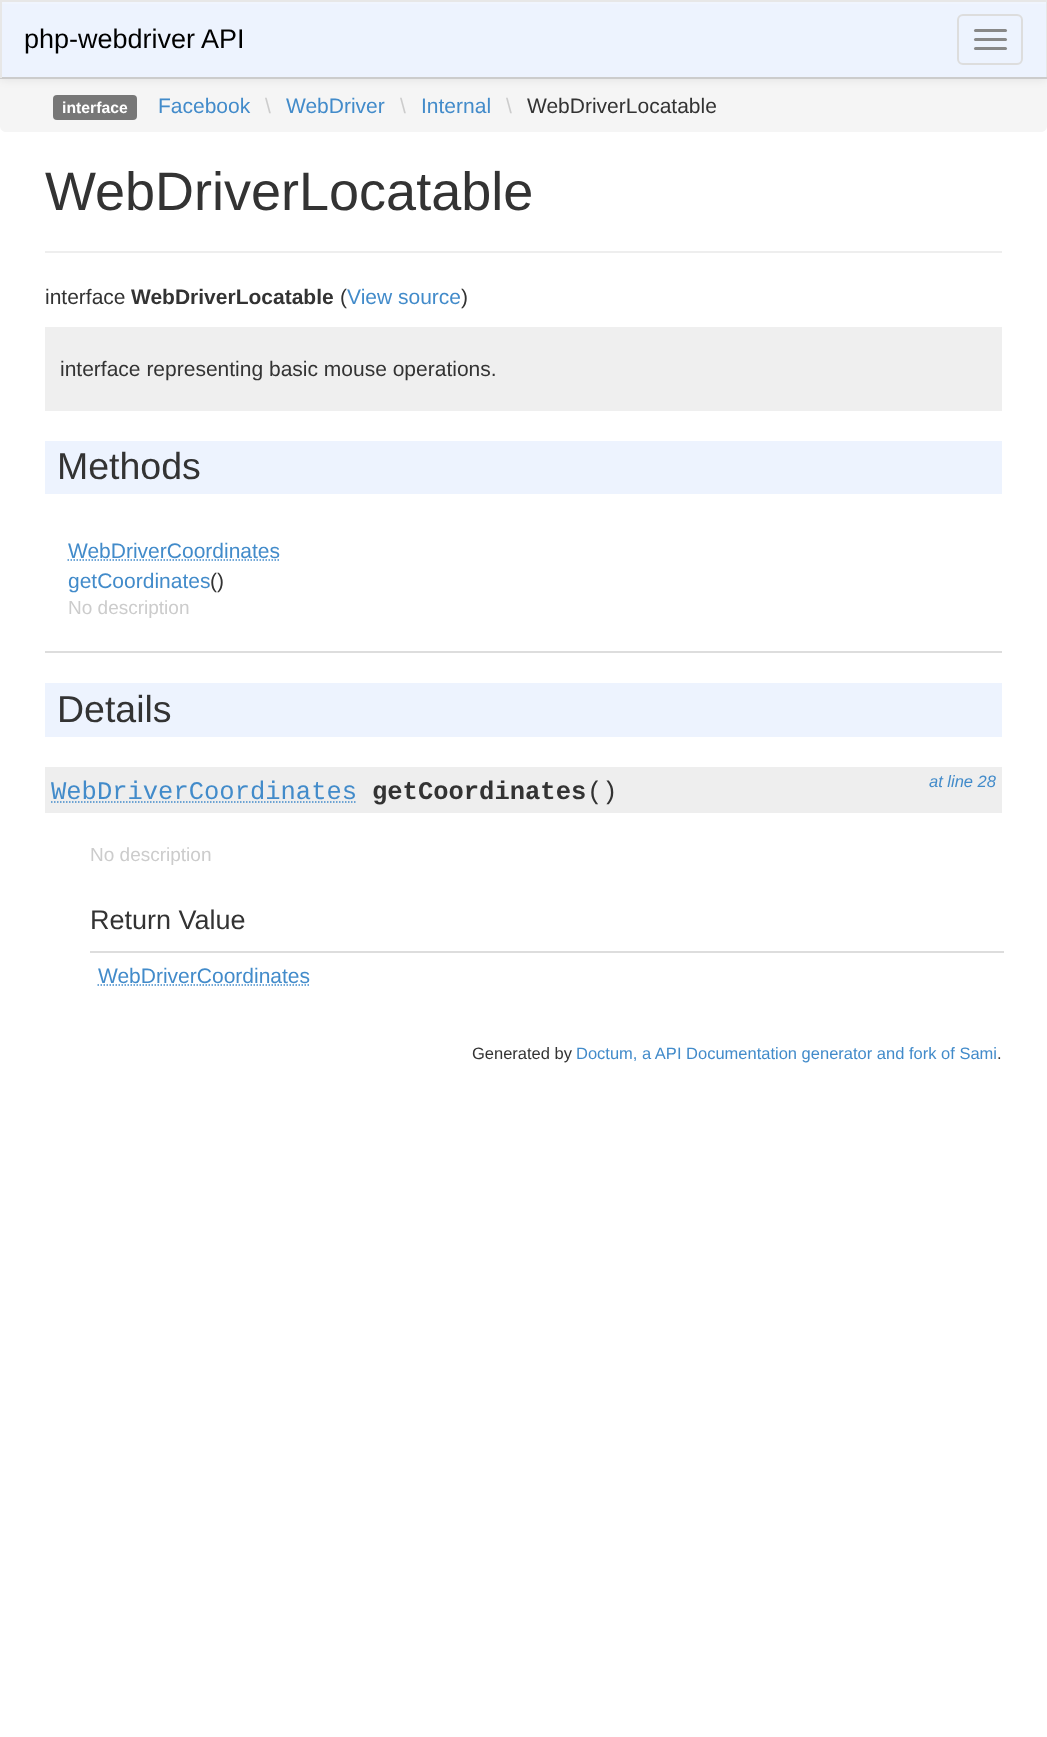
<?xml version="1.0" encoding="UTF-8"?>
<svg xmlns="http://www.w3.org/2000/svg" xmlns:xlink="http://www.w3.org/1999/xlink" width="1047" height="1737">
  <rect width="100%" height="100%" fill="#ffffff" />
  <path d="M 0 78 h 1047 v 48 c 0 3.5 -2.5 6 -6 6 h -1035 c -3.5 0 -6 -2.5 -6 -6 z" fill="#f5f5f5" />
  <rect y="2" width="1047" height="78" fill="#000000" fill-opacity="0.07" filter="blur(4px)" />
  <rect x="2" y="4" width="1044" height="73" fill="#edf3fe" />
  <rect x="2" y="2" width="1044" height="2" fill="#f0f5fe" />
  <rect width="1047" height="2" fill="#e7e7e7" />
  <rect x="1046" width="1" height="78" fill="#e7e7e7" />
  <rect y="77" width="1047" height="2" fill="#cccccc" />
  <rect width="2" height="78" fill="#e7e7e7" />
  <rect x="958" y="15" width="64" height="49" rx="5" fill="none" stroke="#dddddd" stroke-width="2" />
  <rect x="974" y="29" width="33" height="3" rx="1.5" fill="#888888" />
  <rect x="974" y="38" width="33" height="3" rx="1.5" fill="#888888" />
  <rect x="974" y="47" width="33" height="3" rx="1.5" fill="#888888" />
  <rect x="53" y="95" width="84" height="25" rx="4" fill="#777777" />
  <rect x="45" y="251" width="957" height="2" fill="#eeeeee" />
  <rect x="45" y="327" width="957" height="84" fill="#efefef" />
  <rect x="45" y="441" width="957" height="53" fill="#edf3fe" />
  <rect x="45" y="651" width="957" height="2" fill="#dddddd" />
  <path d="M 67.5 560 h 212" fill="none" stroke="#428bca" stroke-width="1.5" stroke-dasharray="1.5 1.5" />
  <rect x="45" y="683" width="957" height="54" fill="#edf3fe" />
  <rect x="45" y="767" width="957" height="46" fill="#eeeeee" />
  <path d="M 51 802 h 306" fill="none" stroke="#428bca" stroke-width="1.5" stroke-dasharray="1.5 1.5" />
  <rect x="90" y="951" width="914" height="2" fill="#dddddd" />
  <path d="M 97.5 985 h 212" fill="none" stroke="#428bca" stroke-width="1.5" stroke-dasharray="1.5 1.5" />
  <text x="24" y="48" style="font-family: Liberation Sans; font-size: 27px; fill: #000000">php-webdriver API</text>
  <text x="62" y="113" style="font-family: Liberation Sans; font-size: 15.75px; font-weight: bold; fill: #ffffff">interface</text>
  <text x="158" y="113" style="font-family: Liberation Sans; font-size: 21px; fill: #428bca">Facebook</text>
  <text x="265" y="113" style="font-family: Liberation Sans; font-size: 21px; fill: #cccccc">\</text>
  <text x="286" y="113" style="font-family: Liberation Sans; font-size: 21px; fill: #428bca">WebDriver</text>
  <text x="400" y="113" style="font-family: Liberation Sans; font-size: 21px; fill: #cccccc">\</text>
  <text x="421" y="113" style="font-family: Liberation Sans; font-size: 21px; fill: #428bca">Internal</text>
  <text x="506" y="113" style="font-family: Liberation Sans; font-size: 21px; fill: #cccccc">\</text>
  <text x="527" y="113" style="font-family: Liberation Sans; font-size: 21px; fill: #333333">WebDriverLocatable</text>
  <text x="45" y="210" style="font-family: Liberation Sans; font-size: 54px; fill: #333333">WebDriverLocatable</text>
  <text x="45" y="304" style="font-family: Liberation Sans; font-size: 21px; fill: #333333">interface</text>
  <text x="131" y="304" style="font-family: Liberation Sans; font-size: 21px; font-weight: bold; fill: #333333">WebDriverLocatable</text>
  <text x="340" y="304" style="font-family: Liberation Sans; font-size: 21px; fill: #333333">(</text>
  <text x="347" y="304" style="font-family: Liberation Sans; font-size: 21px; fill: #428bca">View source</text>
  <text x="461" y="304" style="font-family: Liberation Sans; font-size: 21px; fill: #333333">)</text>
  <text x="60" y="376" style="font-family: Liberation Sans; font-size: 21px; fill: #333333">interface representing basic mouse operations.</text>
  <text x="57" y="479" style="font-family: Liberation Sans; font-size: 37.5px; fill: #333333">Methods</text>
  <text x="68" y="558" style="font-family: Liberation Sans; font-size: 21px; fill: #428bca">WebDriverCoordinates</text>
  <text x="68" y="588" style="font-family: Liberation Sans; font-size: 21px; fill: #428bca">getCoordinates</text>
  <text x="210" y="588" style="font-family: Liberation Sans; font-size: 21px; fill: #333333">()</text>
  <text x="68" y="614" style="font-family: Liberation Sans; font-size: 19px; fill: #cccccc">No description</text>
  <text x="57" y="722" style="font-family: Liberation Sans; font-size: 37.5px; fill: #333333">Details</text>
  <text x="51" y="799" style="font-family: Liberation Mono; font-size: 25.5px; fill: #428bca">WebDriverCoordinates</text>
  <text x="372" y="799" style="font-family: Liberation Mono; font-size: 25.5px; font-weight: bold; fill: #333333">getCoordinates</text>
  <text x="587" y="799" style="font-family: Liberation Mono; font-size: 25.5px; fill: #333333">()</text>
  <text x="929" y="787" style="font-family: Liberation Sans; font-size: 16.5px; font-style: italic; fill: #428bca">at line 28</text>
  <text x="90" y="861" style="font-family: Liberation Sans; font-size: 19px; fill: #cccccc">No description</text>
  <text x="90" y="929" style="font-family: Liberation Sans; font-size: 27px; fill: #333333">Return Value</text>
  <text x="98" y="983" style="font-family: Liberation Sans; font-size: 21px; fill: #428bca">WebDriverCoordinates</text>
  <text x="472" y="1059" style="font-family: Liberation Sans; font-size: 16.5px; fill: #333333">Generated by</text>
  <text x="576" y="1059" style="font-family: Liberation Sans; font-size: 16.5px; fill: #428bca">Doctum, a API Documentation generator and fork of Sami</text>
  <text x="997" y="1059" style="font-family: Liberation Sans; font-size: 16.5px; fill: #333333">.</text>
</svg>
